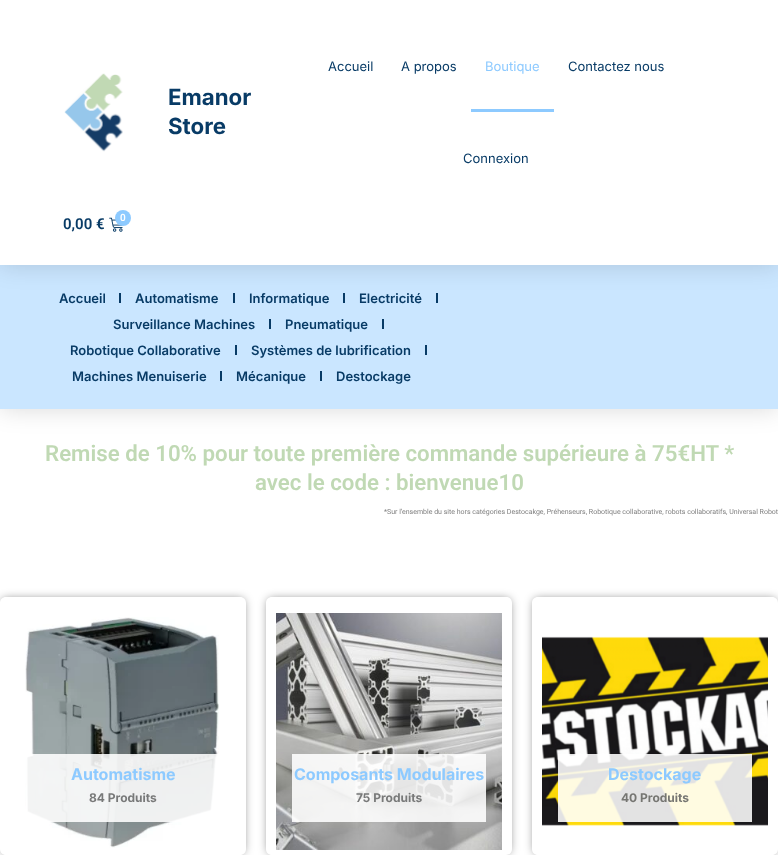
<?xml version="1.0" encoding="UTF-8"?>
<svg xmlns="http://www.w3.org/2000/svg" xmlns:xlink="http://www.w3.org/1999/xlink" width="778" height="855">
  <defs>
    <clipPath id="clip1"><path d="M 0 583 h 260 v 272 h -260 z m 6 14 h 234 c 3.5 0 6 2.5 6 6 v 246 c 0 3.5 -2.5 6 -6 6 h -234 c -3.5 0 -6 -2.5 -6 -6 v -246 c 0 -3.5 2.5 -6 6 -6 z" clip-rule="evenodd" /></clipPath>
    <clipPath id="clip2"><path d="M 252 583 h 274 v 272 h -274 z m 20 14 h 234 c 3.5 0 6 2.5 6 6 v 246 c 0 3.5 -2.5 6 -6 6 h -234 c -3.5 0 -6 -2.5 -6 -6 v -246 c 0 -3.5 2.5 -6 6 -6 z" clip-rule="evenodd" /></clipPath>
    <clipPath id="clip3"><path d="M 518 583 h 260 v 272 h -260 z m 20 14 h 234 c 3.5 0 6 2.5 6 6 v 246 c 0 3.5 -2.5 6 -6 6 h -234 c -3.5 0 -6 -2.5 -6 -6 v -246 c 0 -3.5 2.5 -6 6 -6 z" clip-rule="evenodd" /></clipPath>
  </defs>
  <rect width="100%" height="100%" fill="#ffffff" />
  <rect y="265" width="778" height="144" fill="#000000" fill-opacity="0.15" filter="blur(12px)" />
  <rect y="265" width="778" height="144" fill="#cae6ff" />
  <rect x="119" y="293" width="2" height="10" fill="#083b66" />
  <rect x="233" y="293" width="2" height="10" fill="#083b66" />
  <rect x="343" y="293" width="2" height="10" fill="#083b66" />
  <rect x="436" y="293" width="2" height="10" fill="#083b66" />
  <rect width="778" height="265" fill="#000000" fill-opacity="0.15" filter="blur(12px)" />
  <rect width="778" height="265" fill="#ffffff" />
  <image x="64" y="73" width="59" height="79" xlink:href="image1.png" />
  <rect x="471" y="109" width="83" height="3" fill="#8dcaff" />
  <image x="109" y="217" width="14" height="15" xlink:href="image2.png" />
  <circle cx="123" cy="218" r="8" fill="#8dcaff" />
  <rect x="269" y="319" width="2" height="10" fill="#083b66" />
  <rect x="382" y="319" width="2" height="10" fill="#083b66" />
  <rect x="235" y="345" width="2" height="10" fill="#083b66" />
  <rect x="425" y="345" width="2" height="10" fill="#083b66" />
  <rect x="220" y="371" width="2" height="10" fill="#083b66" />
  <rect x="320" y="371" width="2" height="10" fill="#083b66" />
  <g clip-path="url(#clip1)">
    <rect x="2" y="599" width="242" height="254" rx="4" fill="#000000" fill-opacity="0.5" filter="blur(5px)" />
  </g>
  <image x="25" y="617" width="194" height="231" xlink:href="image3.png" />
  <rect x="26" y="754" width="193" height="68" fill="#ffffff" fill-opacity="0.88" />
  <g clip-path="url(#clip2)">
    <rect x="268" y="599" width="242" height="254" rx="4" fill="#000000" fill-opacity="0.5" filter="blur(5px)" />
  </g>
  <image x="276" y="613" width="226" height="237" xlink:href="image4.png" />
  <rect x="292" y="754" width="194" height="68" fill="#ffffff" fill-opacity="0.88" />
  <g clip-path="url(#clip3)">
    <rect x="534" y="599" width="242" height="254" rx="4" fill="#000000" fill-opacity="0.5" filter="blur(5px)" />
  </g>
  <image x="542" y="636" width="226" height="190" xlink:href="image5.png" />
  <rect x="558" y="754" width="194" height="68" fill="#ffffff" fill-opacity="0.88" />
  <text x="168" y="105" style="font-family: Inter; font-size: 22.25px; font-weight: bold; fill: #083b66">Emanor</text>
  <text x="168" y="134" style="font-family: Inter; font-size: 22.25px; font-weight: bold; fill: #083b66">Store</text>
  <text x="328" y="71" style="font-family: Inter; font-size: 13px; fill: #083b66">Accueil</text>
  <text x="401" y="71" style="font-family: Inter; font-size: 13px; fill: #083b66">A propos</text>
  <text x="485" y="71" style="font-family: Inter; font-size: 13px; fill: #8dcaff">Boutique</text>
  <text x="568" y="71" style="font-family: Inter; font-size: 13px; fill: #083b66">Contactez nous</text>
  <text x="463" y="163" style="font-family: Inter; font-size: 13px; fill: #083b66">Connexion</text>
  <text x="63" y="229" style="font-family: Roboto; font-size: 15px; font-weight: 600; fill: #083b66">0,00 €</text>
  <text x="120" y="221" style="font-family: Roboto; font-size: 10px; font-weight: 600; fill: #ffffff">0</text>
  <text x="59" y="303" style="font-family: Inter; font-size: 13px; font-weight: 600; fill: #083b66">Accueil</text>
  <text x="135" y="303" style="font-family: Inter; font-size: 13px; font-weight: 600; fill: #083b66">Automatisme</text>
  <text x="249" y="303" style="font-family: Inter; font-size: 13px; font-weight: 600; fill: #083b66">Informatique</text>
  <text x="359" y="303" style="font-family: Inter; font-size: 13px; font-weight: 600; fill: #083b66">Electricité</text>
  <text x="113" y="329" style="font-family: Inter; font-size: 13px; font-weight: 600; fill: #083b66">Surveillance Machines</text>
  <text x="285" y="329" style="font-family: Inter; font-size: 13px; font-weight: 600; fill: #083b66">Pneumatique</text>
  <text x="70" y="355" style="font-family: Inter; font-size: 13px; font-weight: 600; fill: #083b66">Robotique Collaborative</text>
  <text x="251" y="355" style="font-family: Inter; font-size: 13px; font-weight: 600; fill: #083b66">Systèmes de lubrification</text>
  <text x="72" y="381" style="font-family: Inter; font-size: 13px; font-weight: 600; fill: #083b66">Machines Menuiserie</text>
  <text x="236" y="381" style="font-family: Inter; font-size: 13px; font-weight: 600; fill: #083b66">Mécanique</text>
  <text x="336" y="381" style="font-family: Inter; font-size: 13px; font-weight: 600; fill: #083b66">Destockage</text>
  <text x="45" y="461" style="font-family: Roboto; font-size: 22.25px; font-weight: 600; fill: #c0d9b4">Remise de 10% pour toute première commande supérieure à 75€HT *</text>
  <text x="255" y="490" style="font-family: Roboto; font-size: 22.25px; font-weight: 600; fill: #c0d9b4">avec le code : bienvenue10</text>
  <text x="384" y="514" style="font-family: Roboto; font-size: 7px; fill: #808080">*Sur l’ensemble du site hors catégories Destocakge, Préhenseurs, Robotique collaborative, robots collaboratifs, Universal Robot</text>
  <text x="71" y="780" style="font-family: Inter; font-size: 16px; font-weight: bold; fill: #8dcaff">Automatisme</text>
  <text x="89" y="802" style="font-family: Inter; font-size: 12px; font-weight: bold; fill: #787979">84 Produits</text>
  <text x="294" y="780" style="font-family: Inter; font-size: 16px; font-weight: bold; fill: #8dcaff">Composants Modulaires</text>
  <text x="356" y="802" style="font-family: Inter; font-size: 12px; font-weight: bold; fill: #787979">75 Produits</text>
  <text x="608" y="780" style="font-family: Inter; font-size: 16px; font-weight: bold; fill: #8dcaff">Destockage</text>
  <text x="621" y="802" style="font-family: Inter; font-size: 12px; font-weight: bold; fill: #767672">40 Produits</text>
</svg>
